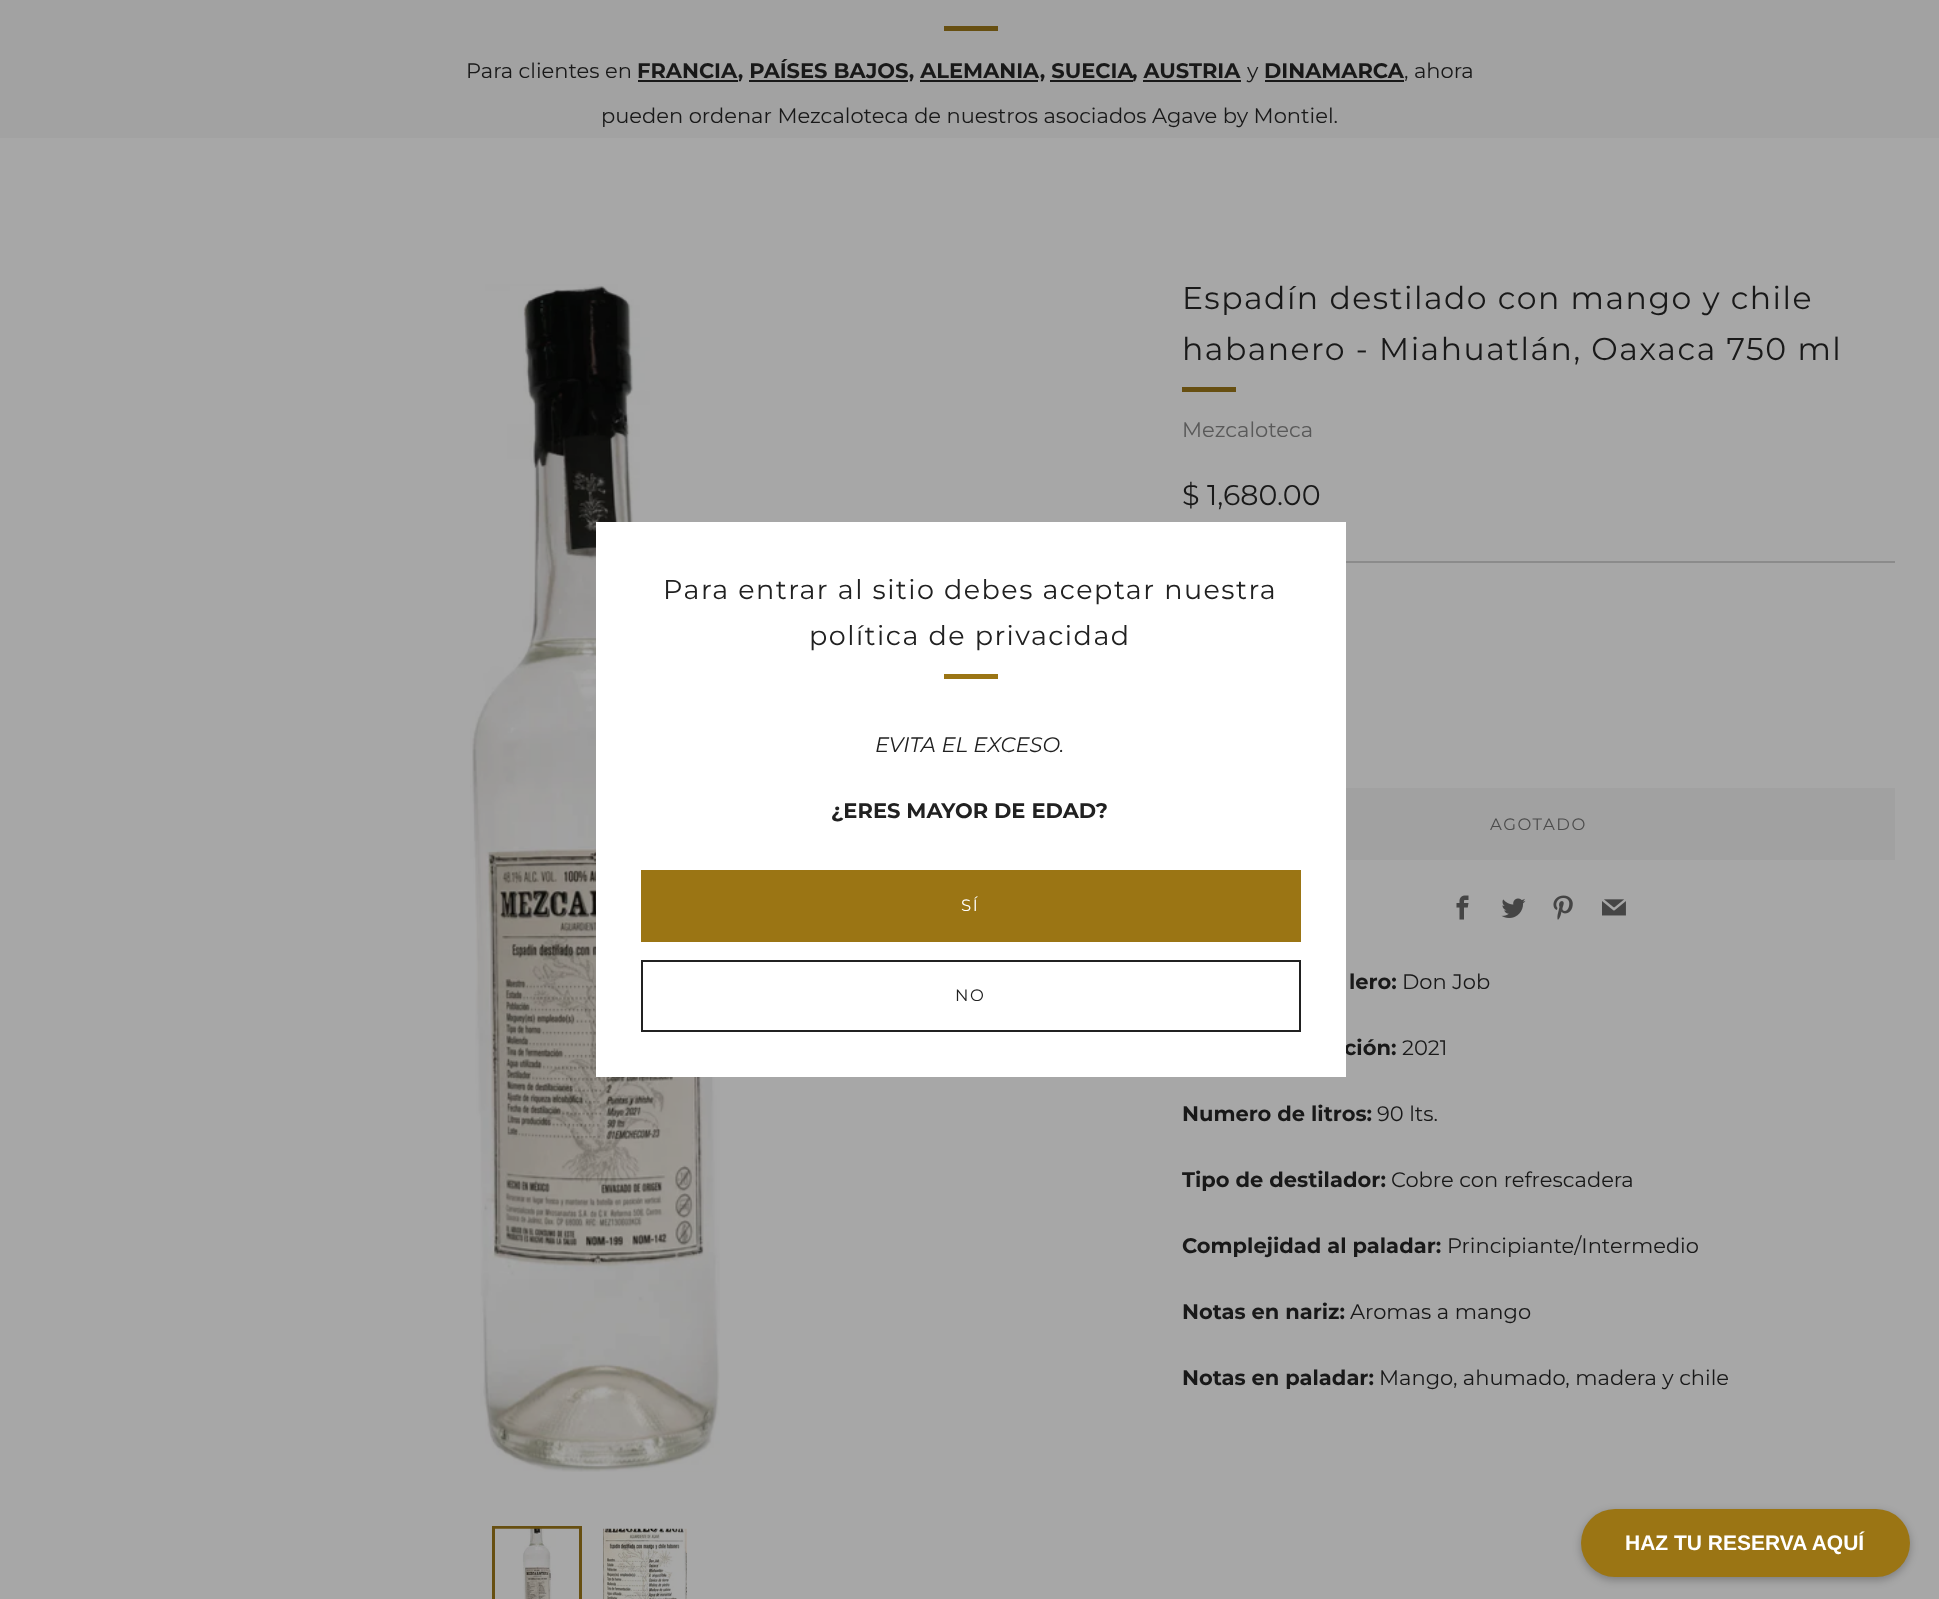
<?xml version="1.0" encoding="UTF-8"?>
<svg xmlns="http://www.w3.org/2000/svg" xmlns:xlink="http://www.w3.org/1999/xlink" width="1939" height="1599">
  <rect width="100%" height="100%" fill="#a7a7a7" />
  <rect width="1939" height="138" fill="#a2a2a2" />
  <rect x="944" y="26" width="54" height="5" fill="#674f11" />
  <rect x="638" y="80" width="100" height="2" fill="#191919" />
  <rect x="1265" y="80" width="139" height="2" fill="#191919" />
  <rect x="749" y="80" width="159" height="2" fill="#191919" />
  <rect x="920" y="80" width="118" height="2" fill="#191919" />
  <rect x="1050" y="80" width="83" height="2" fill="#191919" />
  <rect x="1143" y="80" width="98" height="2" fill="#191919" />
  <image x="470" y="284" width="250" height="1188" xlink:href="image1.png" />
  <rect x="493.5" y="1527.5" width="87" height="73" fill="none" stroke="#674f11" stroke-width="3" />
  <image x="495" y="1528" width="84" height="71" xlink:href="image2.png" />
  <image x="603" y="1528" width="84" height="71" xlink:href="image3.png" />
  <rect x="1182" y="387" width="54" height="5" fill="#674f11" />
  <rect x="1346" y="561" width="549" height="2" fill="#8b8b8b" />
  <rect x="1346" y="788" width="549" height="72" fill="#a1a1a1" />
  <image x="1456" y="895" width="13" height="25" xlink:href="image4.png" />
  <image x="1501" y="898" width="25" height="20" xlink:href="image5.png" />
  <image x="1553" y="895" width="20" height="25" xlink:href="image6.png" />
  <image x="1602" y="899" width="24" height="17" xlink:href="image7.png" />
  <rect x="1581" y="1512" width="329" height="68" rx="34" fill="#000000" fill-opacity="0.25" filter="blur(4px)" />
  <rect x="1581" y="1509" width="329" height="68" rx="34" fill="#9b7514" />
  <text x="466" y="78" style="font-family: Montserrat; font-size: 21px; fill: #191919">Para clientes en</text>
  <text x="637" y="78" style="font-family: Montserrat; font-size: 21px; font-weight: bold; fill: #191919">FRANCIA, PAÍSES BAJOS, ALEMANIA, SUECIA</text>
  <text x="1132" y="78" style="font-family: Montserrat; font-size: 21px; font-weight: bold; fill: #191919">, AUSTRIA</text>
  <text x="1247" y="78" style="font-family: Montserrat; font-size: 21px; fill: #191919">y</text>
  <text x="1264" y="78" style="font-family: Montserrat; font-size: 21px; font-weight: bold; fill: #191919">DINAMARCA</text>
  <text x="1404" y="78" style="font-family: Montserrat; font-size: 21px; fill: #191919">, ahora</text>
  <text x="601" y="123" style="font-family: Montserrat; font-size: 21px; fill: #191919">pueden ordenar Mezcaloteca de nuestros asociados Agave by Montiel.</text>
  <text x="1182" y="309" style="font-family: Montserrat; font-size: 31.5px; letter-spacing: 1.5px; fill: #191919">Espadín destilado con mango y chile</text>
  <text x="1182" y="360" style="font-family: Montserrat; font-size: 31.5px; letter-spacing: 1.5px; fill: #191919">habanero - Miahuatlán, Oaxaca 750 ml</text>
  <text x="1182" y="437" style="font-family: Montserrat; font-size: 21px; fill: #595959">Mezcaloteca</text>
  <text x="1182" y="505" style="font-family: Montserrat; font-size: 28.5px; fill: #191919">$ 1,680.00</text>
  <text x="1490" y="830" style="font-family: Montserrat; font-size: 16.5px; letter-spacing: 1.5px; fill: #4c4c4c">AGOTADO</text>
  <text x="1349" y="989" style="font-family: Montserrat; font-size: 21px; font-weight: bold; fill: #191919">lero:</text>
  <text x="1402" y="989" style="font-family: Montserrat; font-size: 21px; fill: #191919">Don Job</text>
  <text x="1344" y="1055" style="font-family: Montserrat; font-size: 21px; font-weight: bold; fill: #191919">ción:</text>
  <text x="1402" y="1055" style="font-family: Montserrat; font-size: 21px; fill: #191919">2021</text>
  <text x="1182" y="1121" style="font-family: Montserrat; font-size: 21px; font-weight: bold; fill: #191919">Numero de litros:</text>
  <text x="1377" y="1121" style="font-family: Montserrat; font-size: 21px; fill: #191919">90 lts.</text>
  <text x="1182" y="1187" style="font-family: Montserrat; font-size: 21px; font-weight: bold; fill: #191919">Tipo de destilador:</text>
  <text x="1391" y="1187" style="font-family: Montserrat; font-size: 21px; fill: #191919">Cobre con refrescadera</text>
  <text x="1182" y="1253" style="font-family: Montserrat; font-size: 21px; font-weight: bold; fill: #191919">Complejidad al paladar:</text>
  <text x="1447" y="1253" style="font-family: Montserrat; font-size: 21px; fill: #191919">Principiante/Intermedio</text>
  <text x="1182" y="1319" style="font-family: Montserrat; font-size: 21px; font-weight: bold; fill: #191919">Notas en nariz:</text>
  <text x="1350" y="1319" style="font-family: Montserrat; font-size: 21px; fill: #191919">Aromas a mango</text>
  <text x="1182" y="1385" style="font-family: Montserrat; font-size: 21px; font-weight: bold; fill: #191919">Notas en paladar:</text>
  <text x="1379" y="1385" style="font-family: Montserrat; font-size: 21px; fill: #191919">Mango, ahumado, madera y chile</text>
  <rect x="596" y="522" width="750" height="555" fill="#ffffff" />
  <text x="663" y="599" style="font-family: Montserrat; font-size: 27px; letter-spacing: 1.5px; fill: #212121">Para entrar al sitio debes aceptar nuestra</text>
  <text x="809" y="645" style="font-family: Montserrat; font-size: 27px; letter-spacing: 1.5px; fill: #212121">política de privacidad</text>
  <rect x="944" y="674" width="54" height="5" fill="#9b7514" />
  <text x="875" y="752" style="font-family: Montserrat; font-size: 21px; font-style: italic; fill: #212121">EVITA EL EXCESO.</text>
  <text x="831" y="818" style="font-family: Montserrat; font-size: 21px; font-weight: bold; fill: #212121">¿ERES MAYOR DE EDAD?</text>
  <rect x="641" y="870" width="660" height="72" fill="#9b7514" />
  <text x="961" y="911" style="font-family: Montserrat; font-size: 16.5px; letter-spacing: 1.5px; fill: #ffffff">SÍ</text>
  <rect x="642" y="961" width="658" height="70" fill="none" stroke="#212121" stroke-width="2" />
  <text x="955" y="1001" style="font-family: Montserrat; font-size: 16.5px; letter-spacing: 1.5px; fill: #212121">NO</text>
  <text x="1625" y="1550" style="font-family: Liberation Sans; font-size: 21px; font-weight: bold; fill: #ffffff">HAZ TU RESERVA AQUÍ</text>
</svg>
